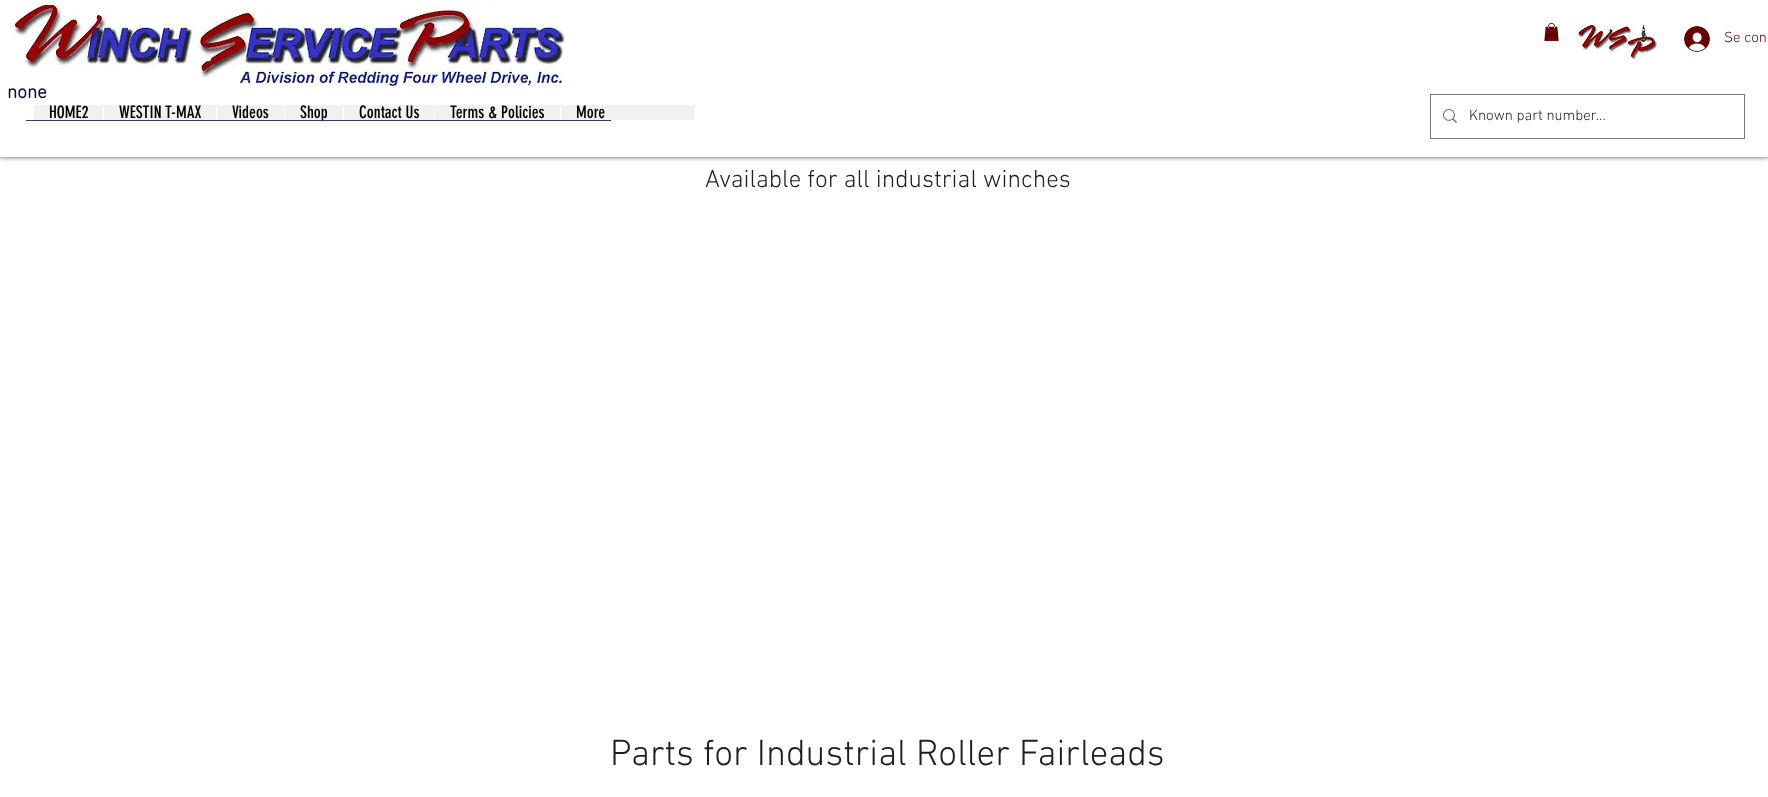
<?xml version="1.0" encoding="UTF-8"?>
<svg xmlns="http://www.w3.org/2000/svg" xmlns:xlink="http://www.w3.org/1999/xlink" width="1768" height="797">
  <rect width="100%" height="100%" fill="#ffffff" />
  <rect width="1768" height="157" fill="#000000" fill-opacity="0.7" filter="blur(2.5px)" />
  <rect width="1768" height="157" fill="#ffffff" />
  <image x="13" y="5" width="554" height="81" xlink:href="image1.png" />
  <rect x="34" y="105" width="661" height="15" fill="#f1f1f1" />
  <rect x="103" y="105" width="1" height="15" fill="#ffffff" />
  <rect x="216" y="105" width="1" height="15" fill="#ffffff" />
  <rect x="284" y="105" width="1" height="15" fill="#ffffff" />
  <rect x="343" y="105" width="1" height="15" fill="#ffffff" />
  <rect x="434" y="105" width="1" height="15" fill="#ffffff" />
  <rect x="560" y="105" width="1" height="15" fill="#ffffff" />
  <image x="1544" y="23" width="15" height="18" xlink:href="image2.png" />
  <image x="1578" y="25" width="79" height="34" xlink:href="image3.png" />
  <image x="1684" y="26" width="26" height="26" xlink:href="image4.png" />
  <rect x="1430.5" y="94.5" width="314" height="44" fill="none" stroke="#797979" />
  <image x="1443" y="109" width="14" height="14" xlink:href="image5.png" />
  <text x="7" y="98" style="font-family: 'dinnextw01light'; font-size: 19px; font-weight: bold; fill: #0a093e">none</text>
  <text x="49" y="118" style="font-family: 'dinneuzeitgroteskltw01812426'; font-size: 17px; fill: #000000">HOME2</text>
  <text x="119" y="118" style="font-family: 'dinneuzeitgroteskltw01812426'; font-size: 17px; fill: #000000">WESTIN T-MAX</text>
  <text x="232" y="118" style="font-family: 'dinneuzeitgroteskltw01812426'; font-size: 17px; fill: #000000">Videos</text>
  <text x="300" y="118" style="font-family: 'dinneuzeitgroteskltw01812426'; font-size: 17px; fill: #000000">Shop</text>
  <text x="359" y="118" style="font-family: 'dinneuzeitgroteskltw01812426'; font-size: 17px; fill: #000000">Contact Us</text>
  <text x="450" y="118" style="font-family: 'dinneuzeitgroteskltw01812426'; font-size: 17px; fill: #000000">Terms &amp; Policies</text>
  <text x="576" y="118" style="font-family: 'dinneuzeitgroteskltw01812426'; font-size: 17px; fill: #000000">More</text>
  <rect x="26" y="120" width="585" height="1" fill="#3a3a65" />
  <text x="1724" y="42" style="font-family: 'dinnextw01light'; font-size: 15px; font-weight: 300; fill: #670001">Se con</text>
  <text x="1469" y="120" style="font-family: 'dinnextw01light'; font-size: 15px; font-weight: 300; fill: #1f1f1f">Known part number...</text>
  <text x="705" y="187" style="font-family: 'dinnextw01light'; font-size: 25px; font-weight: 300; fill: #1f1f1f">Available for all industrial winches</text>
  <text x="610" y="765" style="font-family: 'dinnextw01light'; font-size: 37px; font-weight: 300; fill: #1f1f1f">Parts for Industrial Roller Fairleads</text>
</svg>
